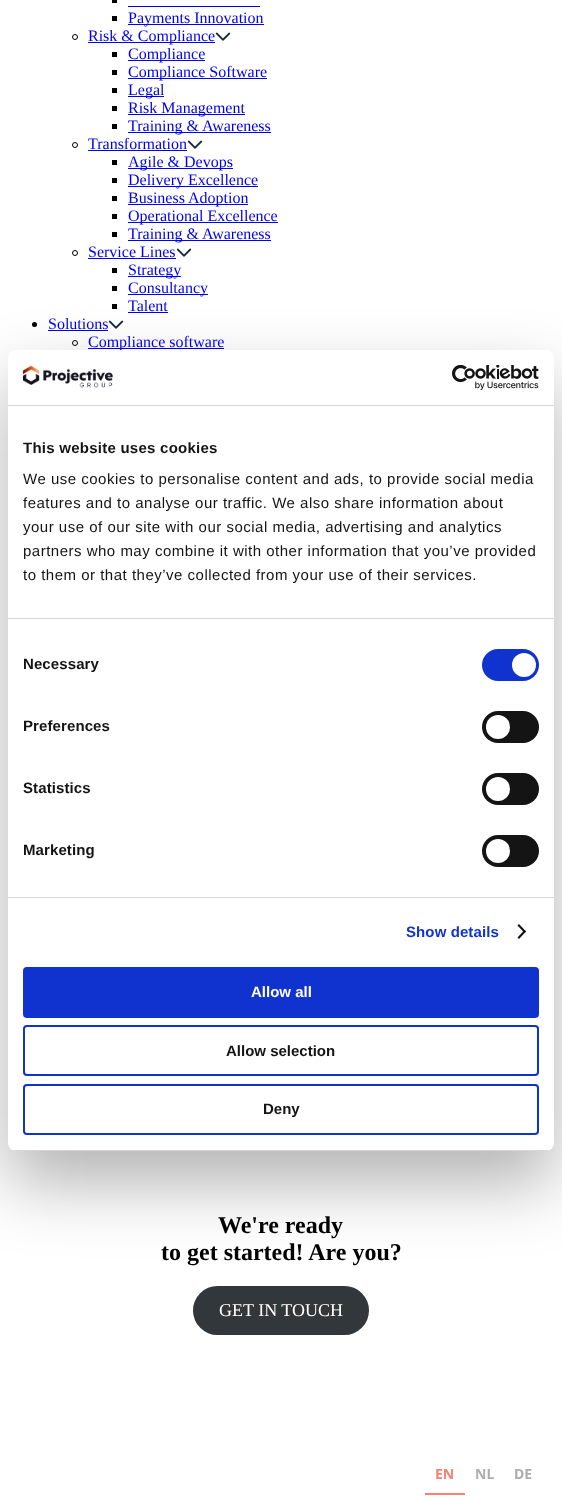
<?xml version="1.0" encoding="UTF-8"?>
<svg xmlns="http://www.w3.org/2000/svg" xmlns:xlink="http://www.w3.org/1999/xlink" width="562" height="1499">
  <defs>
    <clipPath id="clip1"><rect x="8" y="350" width="546" height="801" rx="8" /></clipPath>
  </defs>
  <rect width="100%" height="100%" fill="#ffffff" />
  <rect x="112" width="5" height="3" fill="#000000" />
  <rect x="128" y="6" width="132" height="1" fill="#0000ee" />
  <rect x="112" y="16" width="5" height="5" fill="#000000" />
  <rect x="128" y="24" width="136" height="1" fill="#0000ee" />
  <circle cx="75" cy="37" r="2.5" fill="none" stroke="#000000" />
  <rect x="88" y="42" width="127" height="1" fill="#0000ee" />
  <image x="215" y="32" width="16" height="9" xlink:href="image1.png" />
  <rect x="112" y="52" width="5" height="5" fill="#000000" />
  <rect x="128" y="60" width="77" height="1" fill="#0000ee" />
  <rect x="112" y="70" width="5" height="5" fill="#000000" />
  <rect x="128" y="78" width="139" height="1" fill="#0000ee" />
  <rect x="112" y="88" width="5" height="5" fill="#000000" />
  <rect x="128" y="96" width="36" height="1" fill="#0000ee" />
  <rect x="112" y="106" width="5" height="5" fill="#000000" />
  <rect x="128" y="114" width="117" height="1" fill="#0000ee" />
  <rect x="112" y="124" width="5" height="5" fill="#000000" />
  <rect x="128" y="132" width="143" height="1" fill="#0000ee" />
  <circle cx="75" cy="145" r="2.5" fill="none" stroke="#000000" />
  <rect x="88" y="150" width="99" height="1" fill="#0000ee" />
  <image x="187" y="140" width="16" height="9" xlink:href="image1.png" />
  <rect x="112" y="160" width="5" height="5" fill="#000000" />
  <rect x="128" y="168" width="105" height="1" fill="#0000ee" />
  <rect x="112" y="178" width="5" height="5" fill="#000000" />
  <rect x="128" y="186" width="130" height="1" fill="#0000ee" />
  <rect x="112" y="196" width="5" height="5" fill="#000000" />
  <rect x="128" y="204" width="120" height="1" fill="#0000ee" />
  <rect x="112" y="214" width="5" height="5" fill="#000000" />
  <rect x="128" y="222" width="150" height="1" fill="#0000ee" />
  <rect x="112" y="232" width="5" height="5" fill="#000000" />
  <rect x="128" y="240" width="143" height="1" fill="#0000ee" />
  <circle cx="75" cy="253" r="2.5" fill="none" stroke="#000000" />
  <rect x="88" y="258" width="88" height="1" fill="#0000ee" />
  <image x="176" y="248" width="16" height="9" xlink:href="image1.png" />
  <rect x="112" y="268" width="5" height="5" fill="#000000" />
  <rect x="128" y="276" width="53" height="1" fill="#0000ee" />
  <rect x="112" y="286" width="5" height="5" fill="#000000" />
  <rect x="128" y="294" width="80" height="1" fill="#0000ee" />
  <rect x="112" y="304" width="5" height="5" fill="#000000" />
  <rect x="128" y="312" width="40" height="1" fill="#0000ee" />
  <circle cx="34.5" cy="324.5" r="2.5" fill="#000000" />
  <rect x="48" y="330" width="60" height="1" fill="#0000ee" />
  <image x="108" y="320" width="16" height="9" xlink:href="image1.png" />
  <circle cx="75" cy="343" r="2.5" fill="none" stroke="#000000" />
  <rect x="88" y="348" width="136" height="1" fill="#0000ee" />
  <rect x="8" y="382" width="546" height="801" rx="8" fill="#000000" fill-opacity="0.3" filter="blur(34px)" />
  <rect x="193" y="1286" width="176" height="49" rx="24.5" fill="#32373c" />
  <rect x="425" y="1493" width="40" height="2" fill="#fa8072" />
  <text x="128" y="23" style="font-family: Liberation Serif; font-size: 16px; fill: #0000ee">Payments Innovation</text>
  <text x="88" y="41" style="font-family: Liberation Serif; font-size: 16px; fill: #0000ee">Risk &amp; Compliance</text>
  <text x="128" y="59" style="font-family: Liberation Serif; font-size: 16px; fill: #0000ee">Compliance</text>
  <text x="128" y="77" style="font-family: Liberation Serif; font-size: 16px; fill: #0000ee">Compliance Software</text>
  <text x="128" y="95" style="font-family: Liberation Serif; font-size: 16px; fill: #0000ee">Legal</text>
  <text x="128" y="113" style="font-family: Liberation Serif; font-size: 16px; fill: #0000ee">Risk Management</text>
  <text x="128" y="131" style="font-family: Liberation Serif; font-size: 16px; fill: #0000ee">Training &amp; Awareness</text>
  <text x="88" y="149" style="font-family: Liberation Serif; font-size: 16px; fill: #0000ee">Transformation</text>
  <text x="128" y="167" style="font-family: Liberation Serif; font-size: 16px; fill: #0000ee">Agile &amp; Devops</text>
  <text x="128" y="185" style="font-family: Liberation Serif; font-size: 16px; fill: #0000ee">Delivery Excellence</text>
  <text x="128" y="203" style="font-family: Liberation Serif; font-size: 16px; fill: #0000ee">Business Adoption</text>
  <text x="128" y="221" style="font-family: Liberation Serif; font-size: 16px; fill: #0000ee">Operational Excellence</text>
  <text x="128" y="239" style="font-family: Liberation Serif; font-size: 16px; fill: #0000ee">Training &amp; Awareness</text>
  <text x="88" y="257" style="font-family: Liberation Serif; font-size: 16px; fill: #0000ee">Service Lines</text>
  <text x="128" y="275" style="font-family: Liberation Serif; font-size: 16px; fill: #0000ee">Strategy</text>
  <text x="128" y="293" style="font-family: Liberation Serif; font-size: 16px; fill: #0000ee">Consultancy</text>
  <text x="128" y="311" style="font-family: Liberation Serif; font-size: 16px; fill: #0000ee">Talent</text>
  <text x="48" y="329" style="font-family: Liberation Serif; font-size: 16px; fill: #0000ee">Solutions</text>
  <text x="88" y="347" style="font-family: Liberation Serif; font-size: 16px; fill: #0000ee">Compliance software</text>
  <rect x="8" y="350" width="546" height="801" rx="8" fill="#ffffff" />
  <rect x="8" y="405" width="546" height="1" fill="#d6d6d6" />
  <image x="23" y="365" width="90" height="23" xlink:href="image2.png" />
  <image x="452" y="365" width="87" height="25" xlink:href="image3.png" />
  <rect x="8" y="618" width="546" height="1" fill="#d6d6d6" />
  <text x="23" y="453" style="font-family: Liberation Sans; font-size: 15px; font-weight: bold; letter-spacing: 0.25px; fill: #141414">This website uses cookies</text>
  <text x="23" y="484" style="font-family: Liberation Sans; font-size: 15px; letter-spacing: 0.5px; fill: #141414">We use cookies to personalise content and ads, to provide social media</text>
  <text x="23" y="508" style="font-family: Liberation Sans; font-size: 15px; letter-spacing: 0.5px; fill: #141414">features and to analyse our traffic. We also share information about</text>
  <text x="23" y="532" style="font-family: Liberation Sans; font-size: 15px; letter-spacing: 0.5px; fill: #141414">your use of our site with our social media, advertising and analytics</text>
  <text x="23" y="556" style="font-family: Liberation Sans; font-size: 15px; letter-spacing: 0.5px; fill: #141414">partners who may combine it with other information that you’ve provided</text>
  <text x="23" y="580" style="font-family: Liberation Sans; font-size: 15px; letter-spacing: 0.5px; fill: #141414">to them or that they’ve collected from your use of their services.</text>
  <rect x="8" y="897" width="546" height="1" fill="#d6d6d6" />
  <text x="23" y="669" style="font-family: Liberation Sans; font-size: 15px; font-weight: bold; letter-spacing: 0.1px; fill: #141414">Necessary</text>
  <rect x="482" y="649" width="57" height="32" rx="16" fill="#1032cf" />
  <circle cx="524" cy="665" r="12" fill="#ffffff" />
  <text x="23" y="731" style="font-family: Liberation Sans; font-size: 15px; font-weight: bold; letter-spacing: 0.1px; fill: #141414">Preferences</text>
  <rect x="482" y="711" width="57" height="32" rx="16" fill="#141414" />
  <circle cx="498" cy="727" r="12" fill="#ffffff" />
  <text x="23" y="793" style="font-family: Liberation Sans; font-size: 15px; font-weight: bold; letter-spacing: 0.1px; fill: #141414">Statistics</text>
  <rect x="482" y="773" width="57" height="32" rx="16" fill="#141414" />
  <circle cx="498" cy="789" r="12" fill="#ffffff" />
  <text x="23" y="855" style="font-family: Liberation Sans; font-size: 15px; font-weight: bold; letter-spacing: 0.1px; fill: #141414">Marketing</text>
  <rect x="482" y="835" width="57" height="32" rx="16" fill="#141414" />
  <circle cx="498" cy="851" r="12" fill="#ffffff" />
  <text x="406" y="937" style="font-family: Liberation Sans; font-size: 15px; font-weight: bold; letter-spacing: 0.1px; fill: #1032cf">Show details</text>
  <path d="M 519 924 l 7 7.5 l -1.5 1.5 l -7 -7.5 z" fill="#141414" />
  <path d="M 524.5 930 l 1.5 1.5 l -7 7.5 l -1.5 -1.5 z" fill="#141414" />
  <g clip-path="url(#clip1)">
    <rect x="8" y="1150" width="546" height="1" fill="#d6d6d6" />
  </g>
  <rect x="24" y="968" width="514" height="49" rx="3" fill="#1032cf" stroke="#1032cf" stroke-width="2" />
  <text x="251" y="997" style="font-family: Liberation Sans; font-size: 15px; font-weight: bold; fill: #ffffff">Allow all</text>
  <rect x="24" y="1026" width="514" height="49" rx="3" fill="none" stroke="#1032cf" stroke-width="2" />
  <text x="226" y="1056" style="font-family: Liberation Sans; font-size: 15px; font-weight: bold; fill: #141414">Allow selection</text>
  <rect x="24" y="1085" width="514" height="49" rx="3" fill="none" stroke="#1032cf" stroke-width="2" />
  <text x="263" y="1114" style="font-family: Liberation Sans; font-size: 15px; font-weight: bold; fill: #141414">Deny</text>
  <text x="218" y="1233" style="font-family: Liberation Serif; font-size: 24px; font-weight: bold; fill: #000000">We're ready</text>
  <text x="161" y="1260" style="font-family: Liberation Serif; font-size: 24px; font-weight: bold; fill: #000000">to get started! Are you?</text>
  <text x="219" y="1316" style="font-family: Liberation Serif; font-size: 18px; fill: #ffffff">GET IN TOUCH</text>
  <text x="435" y="1479" style="font-family: Noto Sans; font-size: 14px; font-weight: bold; fill: #fa8072">EN</text>
  <text x="475" y="1479" style="font-family: Noto Sans; font-size: 14px; font-weight: bold; fill: #adadad">NL</text>
  <text x="514" y="1479" style="font-family: Noto Sans; font-size: 14px; font-weight: bold; fill: #adadad">DE</text>
</svg>
